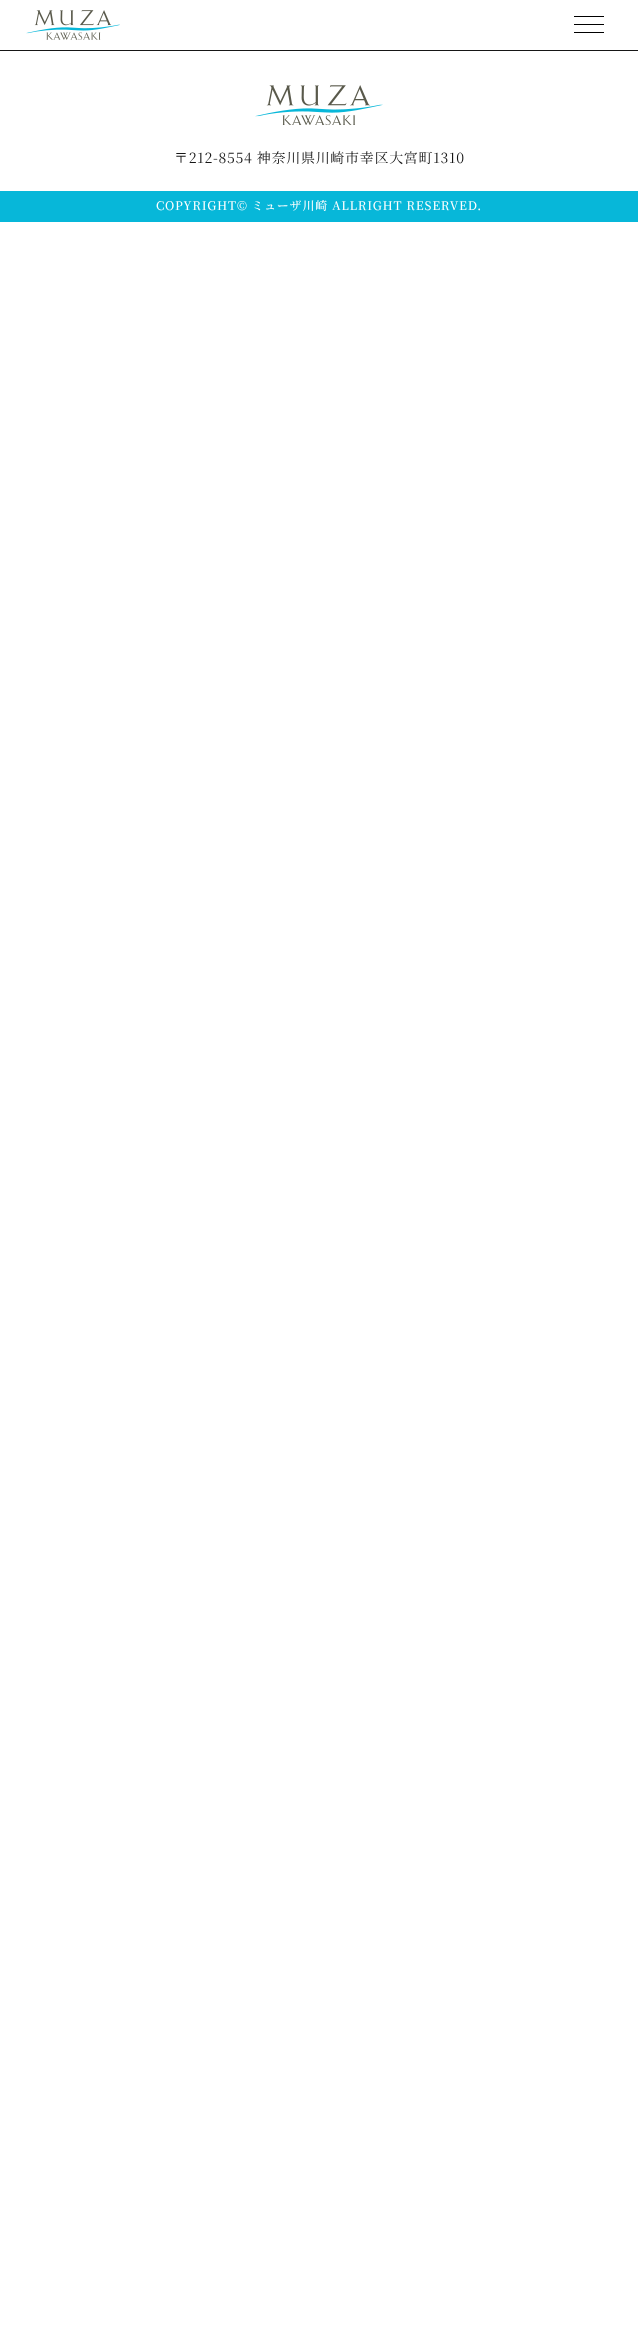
<?xml version="1.0" encoding="UTF-8"?>
<svg xmlns="http://www.w3.org/2000/svg" xmlns:xlink="http://www.w3.org/1999/xlink" width="638" height="2348">
  <rect width="100%" height="100%" fill="#ffffff" />
  <image x="26" y="10" width="94" height="30" xlink:href="image1.png" />
  <rect x="574" y="16" width="30" height="1" fill="#000000" />
  <rect x="574" y="24" width="30" height="1" fill="#000000" />
  <rect x="574" y="32" width="30" height="1" fill="#000000" />
  <rect y="50" width="638" height="1" fill="#161616" />
  <image x="255" y="85" width="128" height="40" xlink:href="image2.png" />
  <rect y="191" width="638" height="31" fill="#07b7d9" />
  <text x="174" y="163" style="font-family: Noto Serif JP; font-size: 14px; letter-spacing: 0.7px; fill: #161616">〒212-8554 神奈川県川崎市幸区大宮町1310</text>
  <text x="156" y="210" style="font-family: Noto Serif JP; font-size: 12px; font-weight: 500; letter-spacing: 0.8px; fill: #ffffff">COPYRIGHT© ミューザ川崎 ALLRIGHT RESERVED.</text>
</svg>
